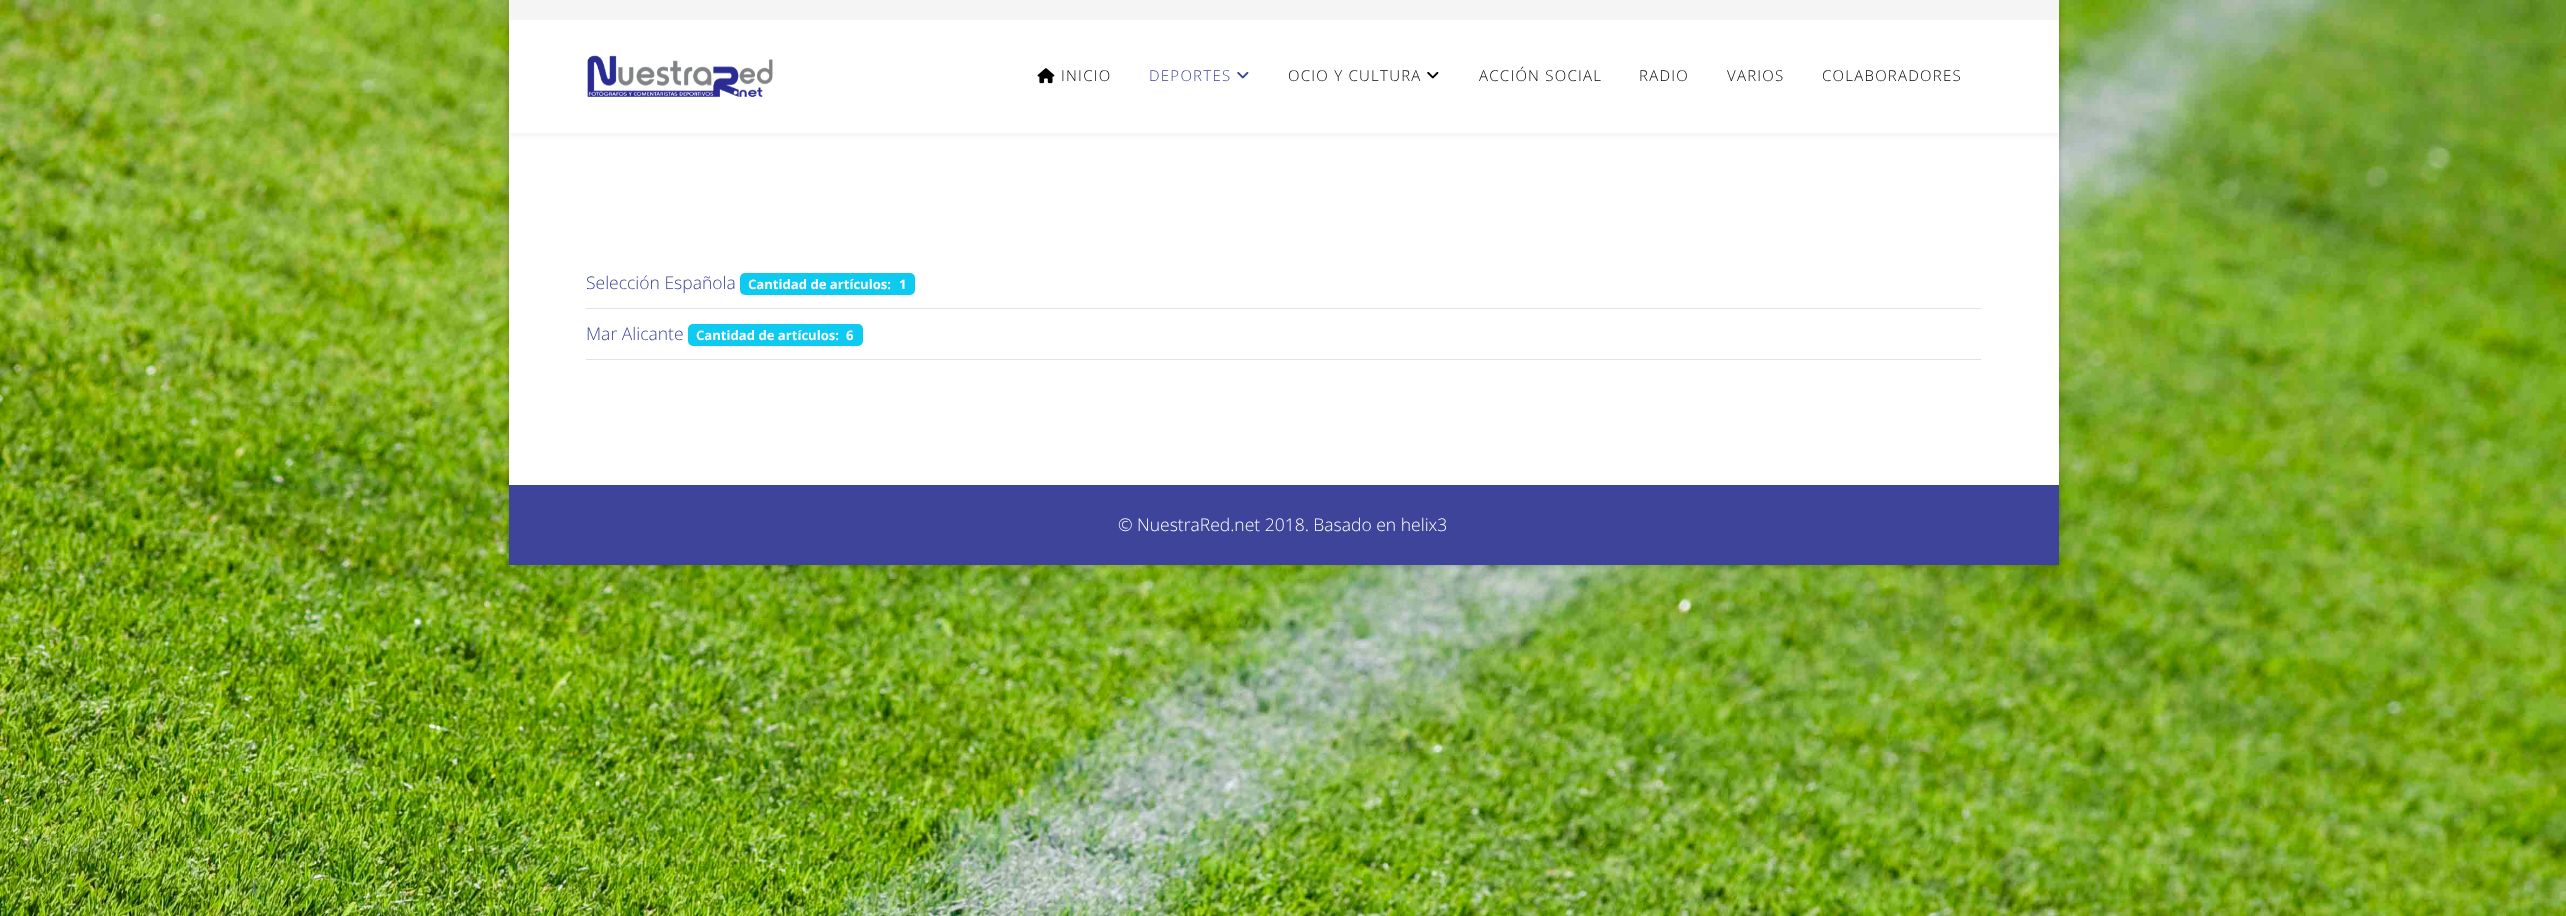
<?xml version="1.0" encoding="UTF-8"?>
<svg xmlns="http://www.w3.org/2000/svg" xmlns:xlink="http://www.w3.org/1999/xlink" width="2566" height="916">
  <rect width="100%" height="100%" fill="#ffffff" />
  <image x="0" y="0" width="2566" height="916" xlink:href="image1.png" />
  <rect x="509" width="1550" height="565" fill="#000000" fill-opacity="0.2" filter="blur(3px)" />
  <rect x="509" y="133" width="1550" height="352" fill="#ffffff" />
  <rect x="509" width="1550" height="20" fill="#f5f5f5" />
  <rect x="509" y="24" width="1550" height="112" fill="#000000" fill-opacity="0.05" filter="blur(2px)" />
  <rect x="509" y="20" width="1550" height="113" fill="#ffffff" />
  <image x="587" y="55" width="186" height="42" xlink:href="image2.png" />
  <image x="1037" y="68" width="18" height="16" xlink:href="image3.png" />
  <image x="1237" y="71" width="12" height="8" xlink:href="image4.png" />
  <image x="1427" y="71" width="12" height="8" xlink:href="image5.png" />
  <rect x="586" y="308" width="1395" height="1" fill="#dfe3e7" />
  <rect x="740" y="273" width="175" height="22" rx="5" fill="#0dcaf0" />
  <rect x="586" y="359" width="1395" height="1" fill="#dfe3e7" />
  <rect x="688" y="324" width="175" height="22" rx="5" fill="#0dcaf0" />
  <rect x="509" y="485" width="1550" height="80" fill="#3d449a" />
  <text x="1061" y="81" style="font-family: Open Sans; font-size: 15px; font-weight: 300; letter-spacing: 1.25px; fill: #000000">INICIO</text>
  <text x="1149" y="81" style="font-family: Open Sans; font-size: 15px; font-weight: 300; letter-spacing: 1.25px; fill: #3d449a">DEPORTES</text>
  <text x="1288" y="81" style="font-family: Open Sans; font-size: 15px; font-weight: 300; letter-spacing: 1.25px; fill: #000000">OCIO Y CULTURA</text>
  <text x="1479" y="81" style="font-family: Open Sans; font-size: 15px; font-weight: 300; letter-spacing: 1.25px; fill: #000000">ACCIÓN SOCIAL</text>
  <text x="1639" y="81" style="font-family: Open Sans; font-size: 15px; font-weight: 300; letter-spacing: 1.25px; fill: #000000">RADIO</text>
  <text x="1727" y="81" style="font-family: Open Sans; font-size: 15px; font-weight: 300; letter-spacing: 1.25px; fill: #000000">VARIOS</text>
  <text x="1822" y="81" style="font-family: Open Sans; font-size: 15px; font-weight: 300; letter-spacing: 1.25px; fill: #000000">COLABORADORES</text>
  <text x="586" y="289" style="font-family: Open Sans; font-size: 17.5px; font-weight: 300; fill: #3d449a">Selección Española</text>
  <text x="748" y="289" style="font-family: Open Sans; font-size: 13.1px; font-weight: bold; fill: #ffffff">Cantidad de artículos:</text>
  <text x="899" y="289" style="font-family: Open Sans; font-size: 13.1px; font-weight: bold; fill: #ffffff">1</text>
  <text x="586" y="340" style="font-family: Open Sans; font-size: 17.5px; font-weight: 300; fill: #3d449a">Mar Alicante</text>
  <text x="696" y="340" style="font-family: Open Sans; font-size: 13.1px; font-weight: bold; fill: #ffffff">Cantidad de artículos:</text>
  <text x="846" y="340" style="font-family: Open Sans; font-size: 13.1px; font-weight: bold; fill: #ffffff">6</text>
  <text x="1118" y="531" style="font-family: Open Sans; font-size: 17.5px; font-weight: 300; fill: #ffffff">© NuestraRed.net 2018. Basado en helix3</text>
</svg>
